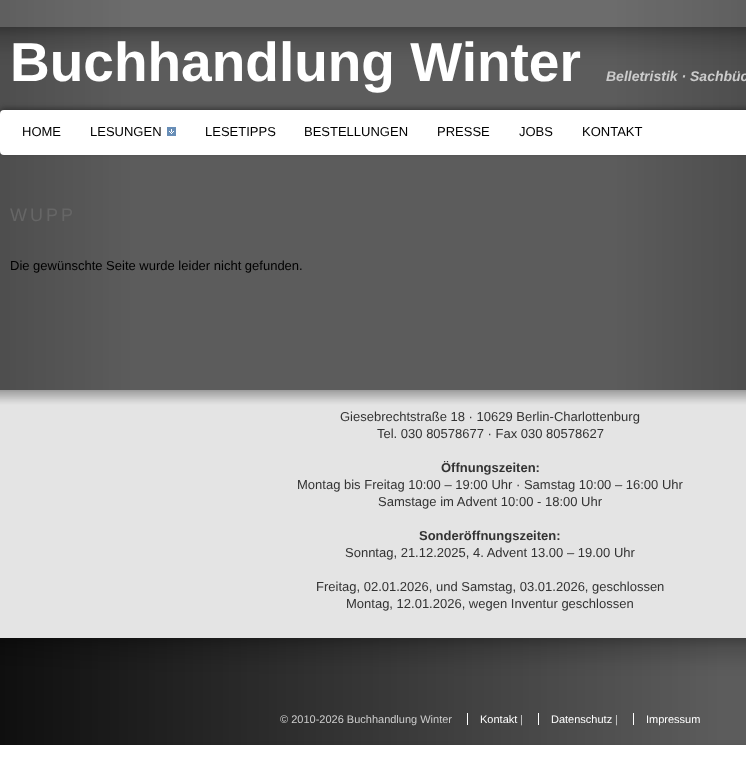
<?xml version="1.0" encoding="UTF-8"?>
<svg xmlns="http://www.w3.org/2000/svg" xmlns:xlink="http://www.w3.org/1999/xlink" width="746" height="783">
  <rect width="100%" height="100%" fill="#ffffff" />
  <image x="0" y="0" width="746" height="390" xlink:href="image1.png" />
  <rect y="108" width="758" height="45" rx="4" fill="#212121" fill-opacity="0.6" filter="blur(2.5px)" />
  <rect y="110" width="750" height="45" rx="4" fill="#ffffff" />
  <image x="167" y="127" width="9" height="9" xlink:href="image2.png" />
  <image x="0" y="390" width="746" height="247" xlink:href="image3.png" />
  <image x="0" y="637" width="746" height="108" xlink:href="image4.png" />
  <rect x="467" y="713" width="1" height="12" fill="#ffffff" />
  <rect x="538" y="713" width="1" height="12" fill="#ffffff" />
  <rect x="633" y="713" width="1" height="12" fill="#ffffff" />
  <text x="10" y="81" style="font-family: Liberation Sans; font-size: 55px; font-weight: bold; fill: #ffffff">Buchhandlung Winter</text>
  <text x="606" y="81" style="font-family: Liberation Sans; font-size: 14px; font-weight: bold; font-style: italic; fill: #cccccc">Belletristik · Sachbüc</text>
  <text x="22" y="136" style="font-family: Liberation Sans; font-size: 13px; fill: #000000">HOME</text>
  <text x="90" y="136" style="font-family: Liberation Sans; font-size: 13px; fill: #000000">LESUNGEN</text>
  <text x="205" y="136" style="font-family: Liberation Sans; font-size: 13px; fill: #000000">LESETIPPS</text>
  <text x="304" y="136" style="font-family: Liberation Sans; font-size: 13px; fill: #000000">BESTELLUNGEN</text>
  <text x="437" y="136" style="font-family: Liberation Sans; font-size: 13px; fill: #000000">PRESSE</text>
  <text x="519" y="136" style="font-family: Liberation Sans; font-size: 13px; fill: #000000">JOBS</text>
  <text x="582" y="136" style="font-family: Liberation Sans; font-size: 13px; fill: #000000">KONTAKT</text>
  <text x="10" y="221" style="font-family: Liberation Sans; font-size: 18px; letter-spacing: 3px; fill: #666666">WUPP</text>
  <text x="10" y="270" style="font-family: Liberation Sans; font-size: 13px; fill: #000000">Die gewünschte Seite wurde leider nicht gefunden.</text>
  <text x="340" y="421" style="font-family: Liberation Sans; font-size: 13px; fill: #333333">Giesebrechtstraße 18 · 10629 Berlin-Charlottenburg</text>
  <text x="377" y="438" style="font-family: Liberation Sans; font-size: 13px; fill: #333333">Tel. 030 80578677 · Fax 030 80578627</text>
  <text x="441" y="472" style="font-family: Liberation Sans; font-size: 13px; font-weight: bold; fill: #333333">Öffnungszeiten:</text>
  <text x="297" y="489" style="font-family: Liberation Sans; font-size: 13px; fill: #333333">Montag bis Freitag 10:00 – 19:00 Uhr · Samstag 10:00 – 16:00 Uhr</text>
  <text x="378" y="506" style="font-family: Liberation Sans; font-size: 13px; fill: #333333">Samstage im Advent 10:00 - 18:00 Uhr</text>
  <text x="419" y="540" style="font-family: Liberation Sans; font-size: 13px; font-weight: bold; fill: #333333">Sonderöffnungszeiten:</text>
  <text x="345" y="557" style="font-family: Liberation Sans; font-size: 13px; fill: #333333">Sonntag, 21.12.2025, 4. Advent 13.00 – 19.00 Uhr</text>
  <text x="316" y="591" style="font-family: Liberation Sans; font-size: 13px; fill: #333333">Freitag, 02.01.2026, und Samstag, 03.01.2026, geschlossen</text>
  <text x="346" y="608" style="font-family: Liberation Sans; font-size: 13px; fill: #333333">Montag, 12.01.2026, wegen Inventur geschlossen</text>
  <text x="280" y="723" style="font-family: Liberation Sans; font-size: 11px; fill: #cccccc">© 2010-2026 Buchhandlung Winter</text>
  <text x="480" y="723" style="font-family: Liberation Sans; font-size: 11px; fill: #ffffff">Kontakt</text>
  <text x="520" y="723" style="font-family: Liberation Sans; font-size: 11px; fill: #cccccc">|</text>
  <text x="551" y="723" style="font-family: Liberation Sans; font-size: 11px; fill: #ffffff">Datenschutz</text>
  <text x="615" y="723" style="font-family: Liberation Sans; font-size: 11px; fill: #cccccc">|</text>
  <text x="646" y="723" style="font-family: Liberation Sans; font-size: 11px; fill: #ffffff">Impressum</text>
</svg>
